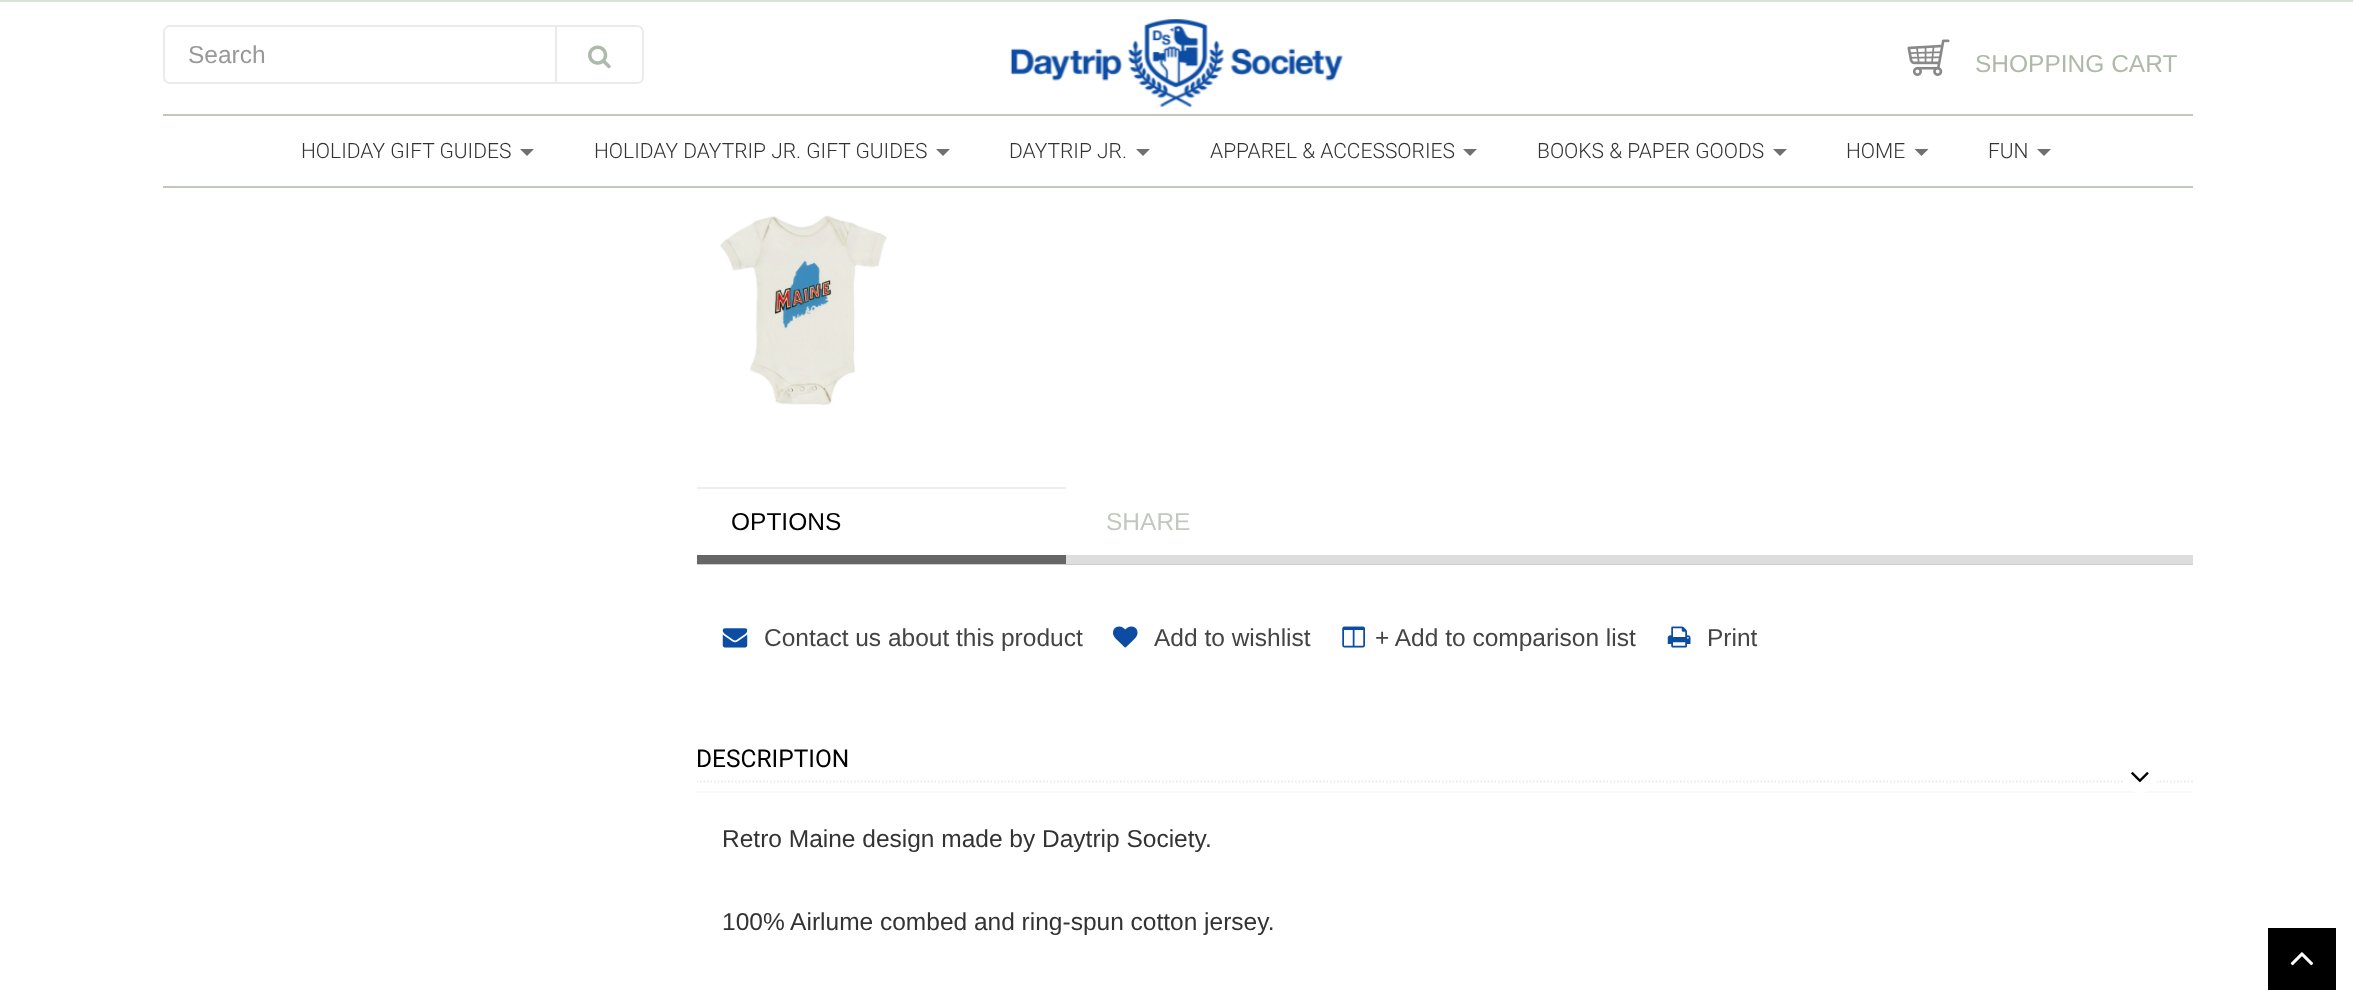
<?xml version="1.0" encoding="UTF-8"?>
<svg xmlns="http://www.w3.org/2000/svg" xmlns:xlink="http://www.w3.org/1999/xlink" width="2353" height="990">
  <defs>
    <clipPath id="clip1"><rect x="697" y="739" width="1496" height="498" rx="7" /></clipPath>
  </defs>
  <rect width="100%" height="100%" fill="#ffffff" />
  <rect width="2353" height="2" fill="#dae3d7" />
  <path d="M 170 26 h 386 v 57 h -386 c -3.5 0 -6 -2.5 -6 -6 v -45 c 0 -3.5 2.5 -6 6 -6 z" fill="none" stroke="#ebebeb" stroke-width="2" />
  <path d="M 556 26 h 81 c 3.5 0 6 2.5 6 6 v 45 c 0 3.5 -2.5 6 -6 6 h -81 z" fill="#ffffff" stroke="#ebebeb" stroke-width="2" />
  <image x="588" y="45" width="23" height="24" xlink:href="image1.png" />
  <image x="1010" y="19" width="333" height="88" xlink:href="image2.png" />
  <image x="1907" y="39" width="43" height="37" xlink:href="image3.png" />
  <rect x="163" y="114" width="2030" height="2" fill="#c1c9bf" />
  <rect x="163" y="186" width="2030" height="2" fill="#c1c9bf" />
  <path d="M 520 149 h 14 l -7 7 z" fill="#707070" />
  <path d="M 936 149 h 14 l -7 7 z" fill="#707070" />
  <path d="M 1136 149 h 14 l -7 7 z" fill="#707070" />
  <path d="M 1463 149 h 14 l -7 7 z" fill="#707070" />
  <path d="M 1773 149 h 14 l -7 7 z" fill="#707070" />
  <path d="M 1914.5 149 h 14 l -7 7 z" fill="#707070" />
  <path d="M 2037 149 h 14 l -7 7 z" fill="#707070" />
  <image x="720" y="215" width="167" height="190" xlink:href="image4.png" />
  <rect x="697" y="564" width="1496" height="1" fill="#cccccc" />
  <rect x="1066" y="555" width="1127" height="9" fill="#dddddd" />
  <rect x="697" y="487" width="369" height="2" fill="#eeeeee" />
  <rect x="697" y="555" width="369" height="9" fill="#666666" />
  <image x="722" y="628" width="26" height="20" xlink:href="image5.png" />
  <image x="1113" y="626" width="25" height="22" xlink:href="image6.png" />
  <image x="1342" y="626" width="23" height="22" xlink:href="image7.png" />
  <image x="1667" y="626" width="24" height="22" xlink:href="image8.png" />
  <rect x="697" y="791" width="1496" height="2" fill="#f9f9f9" />
  <g clip-path="url(#clip1)">
    <path d="M 696.5 781.5 h 1496.5" fill="none" stroke="#ebebeb" stroke-width="1.8" stroke-dasharray="1.75 1.75" />
  </g>
  <ellipse cx="2140" cy="777" rx="17.5" ry="16" fill="#ffffff" />
  <image x="2131" y="772" width="18" height="11" xlink:href="image9.png" />
  <rect x="2268" y="928" width="68" height="62" fill="#000000" />
  <image x="2290" y="952" width="24" height="14" xlink:href="image10.png" />
  <text x="188" y="63" style="font-family: Liberation Sans; font-size: 24.5px; fill: #999999">Search</text>
  <text x="1975" y="72" style="font-family: Liberation Sans; font-size: 24.5px; fill: #adbaa9">SHOPPING CART</text>
  <text x="301" y="158" style="font-family: Roboto; font-size: 21px; font-weight: 300; fill: #333333">HOLIDAY GIFT GUIDES</text>
  <text x="594" y="158" style="font-family: Roboto; font-size: 21px; font-weight: 300; fill: #333333">HOLIDAY DAYTRIP JR. GIFT GUIDES</text>
  <text x="1009" y="158" style="font-family: Roboto; font-size: 21px; font-weight: 300; fill: #333333">DAYTRIP JR.</text>
  <text x="1210" y="158" style="font-family: Roboto; font-size: 21px; font-weight: 300; fill: #333333">APPAREL &amp; ACCESSORIES</text>
  <text x="1537" y="158" style="font-family: Roboto; font-size: 21px; font-weight: 300; fill: #333333">BOOKS &amp; PAPER GOODS</text>
  <text x="1846" y="158" style="font-family: Roboto; font-size: 21px; font-weight: 300; fill: #333333">HOME</text>
  <text x="1988" y="158" style="font-family: Roboto; font-size: 21px; font-weight: 300; fill: #333333">FUN</text>
  <text x="731" y="530" style="font-family: Liberation Sans; font-size: 24.5px; fill: #000000">OPTIONS</text>
  <text x="1106" y="530" style="font-family: Liberation Sans; font-size: 24.5px; fill: #c1c9bf">SHARE</text>
  <text x="764" y="646" style="font-family: Liberation Sans; font-size: 24.5px; fill: #444444">Contact us about this product</text>
  <text x="1154" y="646" style="font-family: Liberation Sans; font-size: 24.5px; fill: #444444">Add to wishlist</text>
  <text x="1375" y="646" style="font-family: Liberation Sans; font-size: 24.5px; fill: #444444">+ Add to comparison list</text>
  <text x="1707" y="646" style="font-family: Liberation Sans; font-size: 24.5px; fill: #444444">Print</text>
  <text x="696" y="767" style="font-family: Roboto; font-size: 24.5px; fill: #000000">DESCRIPTION</text>
  <text x="722" y="847" style="font-family: Liberation Sans; font-size: 24.5px; fill: #333333">Retro Maine design made by Daytrip Society.</text>
  <text x="722" y="930" style="font-family: Liberation Sans; font-size: 24.5px; fill: #333333">100% Airlume combed and ring-spun cotton jersey.</text>
</svg>
